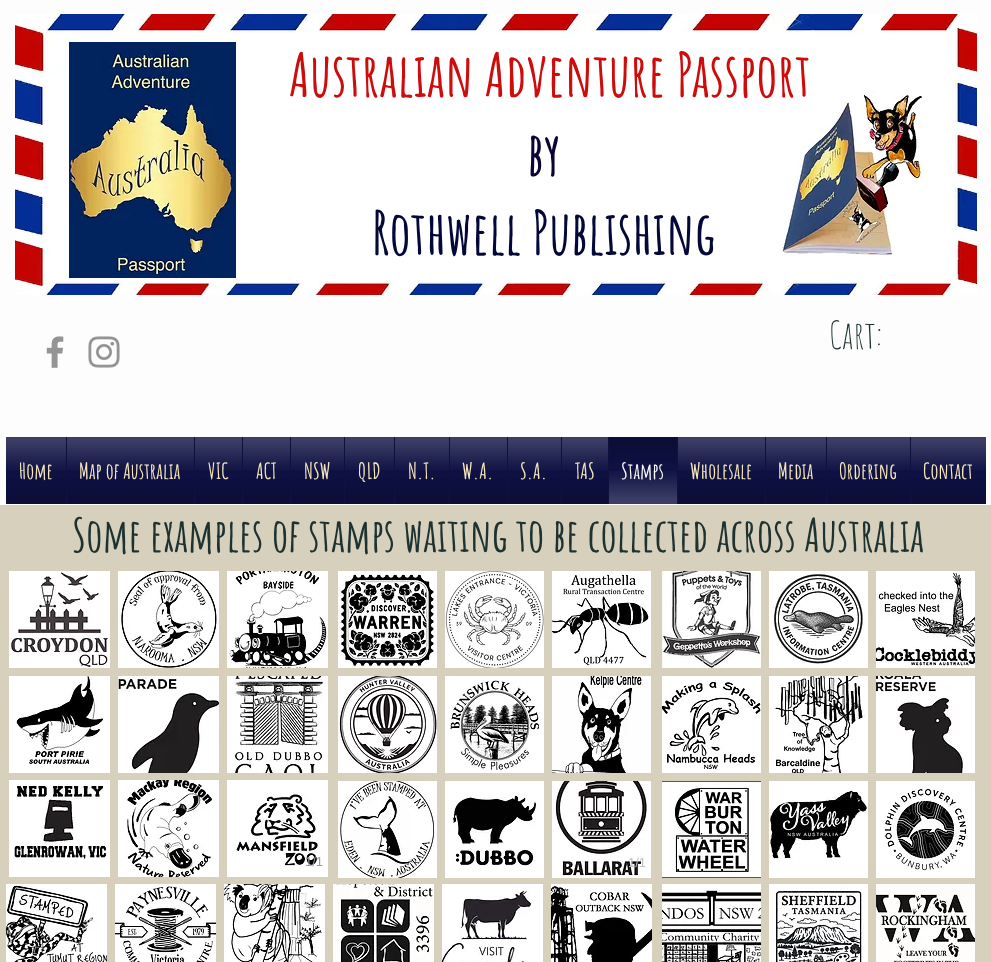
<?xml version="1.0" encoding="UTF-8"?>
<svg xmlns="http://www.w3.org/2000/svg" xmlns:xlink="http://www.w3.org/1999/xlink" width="991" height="962">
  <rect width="100%" height="100%" fill="#fefdfd" />
  <image x="15" y="14" width="962" height="281" xlink:href="image1.png" />
  <image x="69" y="42" width="167" height="236" xlink:href="image2.png" />
  <image x="780" y="91" width="144" height="166" xlink:href="image3.png" />
  <image x="46" y="336" width="18" height="32" xlink:href="image4.png" />
  <image x="88" y="336" width="32" height="32" xlink:href="image5.png" />
  <rect x="6" y="437" width="980" height="67" fill="#0e1142" />
  <rect y="505" width="991" height="457" fill="#d7d0bd" />
  <image x="9" y="571" width="101" height="97" xlink:href="image36.png" />
  <image x="118" y="571" width="101" height="97" xlink:href="image37.png" />
  <image x="227" y="571" width="101" height="97" xlink:href="image38.png" />
  <image x="9" y="676" width="101" height="97" xlink:href="image39.png" />
  <image x="118" y="676" width="101" height="97" xlink:href="image40.png" />
  <image x="227" y="676" width="101" height="97" xlink:href="image41.png" />
  <image x="9" y="780" width="101" height="97" xlink:href="image42.png" />
  <image x="118" y="780" width="101" height="97" xlink:href="image43.png" />
  <image x="227" y="780" width="101" height="97" xlink:href="image44.png" />
  <image x="338" y="571" width="99" height="97" xlink:href="image45.png" />
  <image x="445" y="571" width="99" height="97" xlink:href="image46.png" />
  <image x="552" y="571" width="99" height="97" xlink:href="image47.png" />
  <image x="338" y="676" width="99" height="97" xlink:href="image48.png" />
  <image x="445" y="676" width="99" height="97" xlink:href="image49.png" />
  <image x="552" y="676" width="99" height="97" xlink:href="image50.png" />
  <image x="338" y="781" width="99" height="97" xlink:href="image51.png" />
  <image x="445" y="781" width="99" height="97" xlink:href="image52.png" />
  <image x="552" y="781" width="99" height="97" xlink:href="image53.png" />
  <image x="662" y="571" width="99" height="97" xlink:href="image54.png" />
  <image x="769" y="571" width="99" height="97" xlink:href="image55.png" />
  <image x="876" y="571" width="99" height="97" xlink:href="image56.png" />
  <image x="662" y="676" width="99" height="97" xlink:href="image57.png" />
  <image x="769" y="676" width="99" height="97" xlink:href="image58.png" />
  <image x="876" y="676" width="99" height="97" xlink:href="image59.png" />
  <image x="662" y="781" width="99" height="97" xlink:href="image60.png" />
  <image x="769" y="781" width="99" height="97" xlink:href="image61.png" />
  <image x="876" y="781" width="99" height="97" xlink:href="image62.png" />
  <image x="6" y="884" width="101" height="78" xlink:href="image63.png" />
  <image x="115" y="884" width="101" height="78" xlink:href="image64.png" />
  <image x="224" y="884" width="101" height="78" xlink:href="image65.png" />
  <image x="333" y="884" width="101" height="78" xlink:href="image66.png" />
  <image x="442" y="884" width="101" height="78" xlink:href="image67.png" />
  <image x="551" y="884" width="101" height="78" xlink:href="image68.png" />
  <image x="662" y="884" width="99" height="78" xlink:href="image69.png" />
  <image x="769" y="884" width="99" height="78" xlink:href="image70.png" />
  <image x="876" y="884" width="99" height="78" xlink:href="image71.png" />
  <text x="289" y="97" style="font-family: Amatic SC; font-size: 60px; font-weight: bold; fill: #cd0c0c">Australian Adventure Passport</text>
  <text x="527" y="176" style="font-family: Amatic SC; font-size: 60px; font-weight: bold; fill: #0a0536">by</text>
  <text x="372" y="255" style="font-family: Amatic SC; font-size: 60px; font-weight: bold; fill: #030839">Rothwell Publishing</text>
  <text x="829" y="349" style="font-family: Amatic SC; font-size: 38px; fill: #1e3331">Cart:</text>
  <text x="19" y="479" style="font-family: Amatic SC; font-size: 22px; font-weight: bold; fill: #f8e8ba">Home</text>
  <image x="6" y="478" width="60" height="26" xlink:href="image7.png" />
  <image x="6" y="437" width="60" height="33" xlink:href="image6.png" />
  <text x="79" y="479" style="font-family: Amatic SC; font-size: 22px; font-weight: bold; fill: #f8e8ba">Map of Australia</text>
  <image x="67" y="478" width="127" height="26" xlink:href="image9.png" />
  <image x="67" y="437" width="127" height="33" xlink:href="image8.png" />
  <text x="208" y="479" style="font-family: Amatic SC; font-size: 22px; font-weight: bold; fill: #f8e8ba">VIC</text>
  <image x="195" y="478" width="47" height="26" xlink:href="image11.png" />
  <image x="195" y="437" width="47" height="33" xlink:href="image10.png" />
  <text x="256" y="479" style="font-family: Amatic SC; font-size: 22px; font-weight: bold; fill: #f8e8ba">ACT</text>
  <image x="243" y="478" width="47" height="26" xlink:href="image13.png" />
  <image x="243" y="437" width="47" height="33" xlink:href="image12.png" />
  <text x="304" y="479" style="font-family: Amatic SC; font-size: 22px; font-weight: bold; fill: #f8e8ba">NSW</text>
  <image x="291" y="478" width="53" height="26" xlink:href="image15.png" />
  <image x="291" y="437" width="53" height="33" xlink:href="image14.png" />
  <text x="358" y="479" style="font-family: Amatic SC; font-size: 22px; font-weight: bold; fill: #f8e8ba">QLD</text>
  <image x="345" y="478" width="49" height="26" xlink:href="image17.png" />
  <image x="345" y="437" width="49" height="33" xlink:href="image16.png" />
  <text x="408" y="479" style="font-family: Amatic SC; font-size: 22px; font-weight: bold; fill: #f8e8ba">N.T.</text>
  <image x="395" y="478" width="54" height="26" xlink:href="image19.png" />
  <image x="395" y="437" width="54" height="33" xlink:href="image18.png" />
  <text x="462" y="479" style="font-family: Amatic SC; font-size: 22px; font-weight: bold; fill: #f8e8ba">W.A.</text>
  <image x="450" y="478" width="57" height="26" xlink:href="image21.png" />
  <image x="450" y="437" width="57" height="33" xlink:href="image20.png" />
  <text x="520" y="479" style="font-family: Amatic SC; font-size: 22px; font-weight: bold; fill: #f8e8ba">S.A.</text>
  <image x="508" y="478" width="53" height="26" xlink:href="image23.png" />
  <image x="508" y="437" width="53" height="33" xlink:href="image22.png" />
  <text x="575" y="479" style="font-family: Amatic SC; font-size: 22px; font-weight: bold; fill: #f8e8ba">TAS</text>
  <image x="562" y="478" width="46" height="26" xlink:href="image25.png" />
  <image x="562" y="437" width="46" height="33" xlink:href="image24.png" />
  <text x="621" y="479" style="font-family: Amatic SC; font-size: 22px; font-weight: bold; fill: #fefdfd">Stamps</text>
  <image x="609" y="471" width="68" height="33" xlink:href="image27.png" />
  <image x="609" y="437" width="68" height="26" xlink:href="image26.png" />
  <text x="690" y="479" style="font-family: Amatic SC; font-size: 22px; font-weight: bold; fill: #f8e8ba">Wholesale</text>
  <image x="678" y="478" width="87" height="26" xlink:href="image29.png" />
  <image x="678" y="437" width="87" height="33" xlink:href="image28.png" />
  <text x="778" y="479" style="font-family: Amatic SC; font-size: 22px; font-weight: bold; fill: #f8e8ba">Media</text>
  <image x="766" y="478" width="60" height="26" xlink:href="image31.png" />
  <image x="766" y="437" width="60" height="33" xlink:href="image30.png" />
  <text x="839" y="479" style="font-family: Amatic SC; font-size: 22px; font-weight: bold; fill: #f8e8ba">Ordering</text>
  <image x="827" y="478" width="83" height="26" xlink:href="image33.png" />
  <image x="827" y="437" width="83" height="33" xlink:href="image32.png" />
  <text x="923" y="479" style="font-family: Amatic SC; font-size: 22px; font-weight: bold; fill: #f8e8ba">Contact</text>
  <image x="911" y="478" width="75" height="26" xlink:href="image35.png" />
  <image x="911" y="437" width="75" height="33" xlink:href="image34.png" />
  <text x="72" y="552" style="font-family: Amatic SC; font-size: 46px; font-weight: bold; fill: #1e3331">Some examples of stamps waiting to be collected across Australia</text>
  <text x="305" y="866" style="font-family: Liberation Sans; font-size: 13px; fill: #9d9d9d">1/1</text>
  <text x="628" y="867" style="font-family: Liberation Sans; font-size: 13px; fill: #c2c1c2">1/1</text>
</svg>
